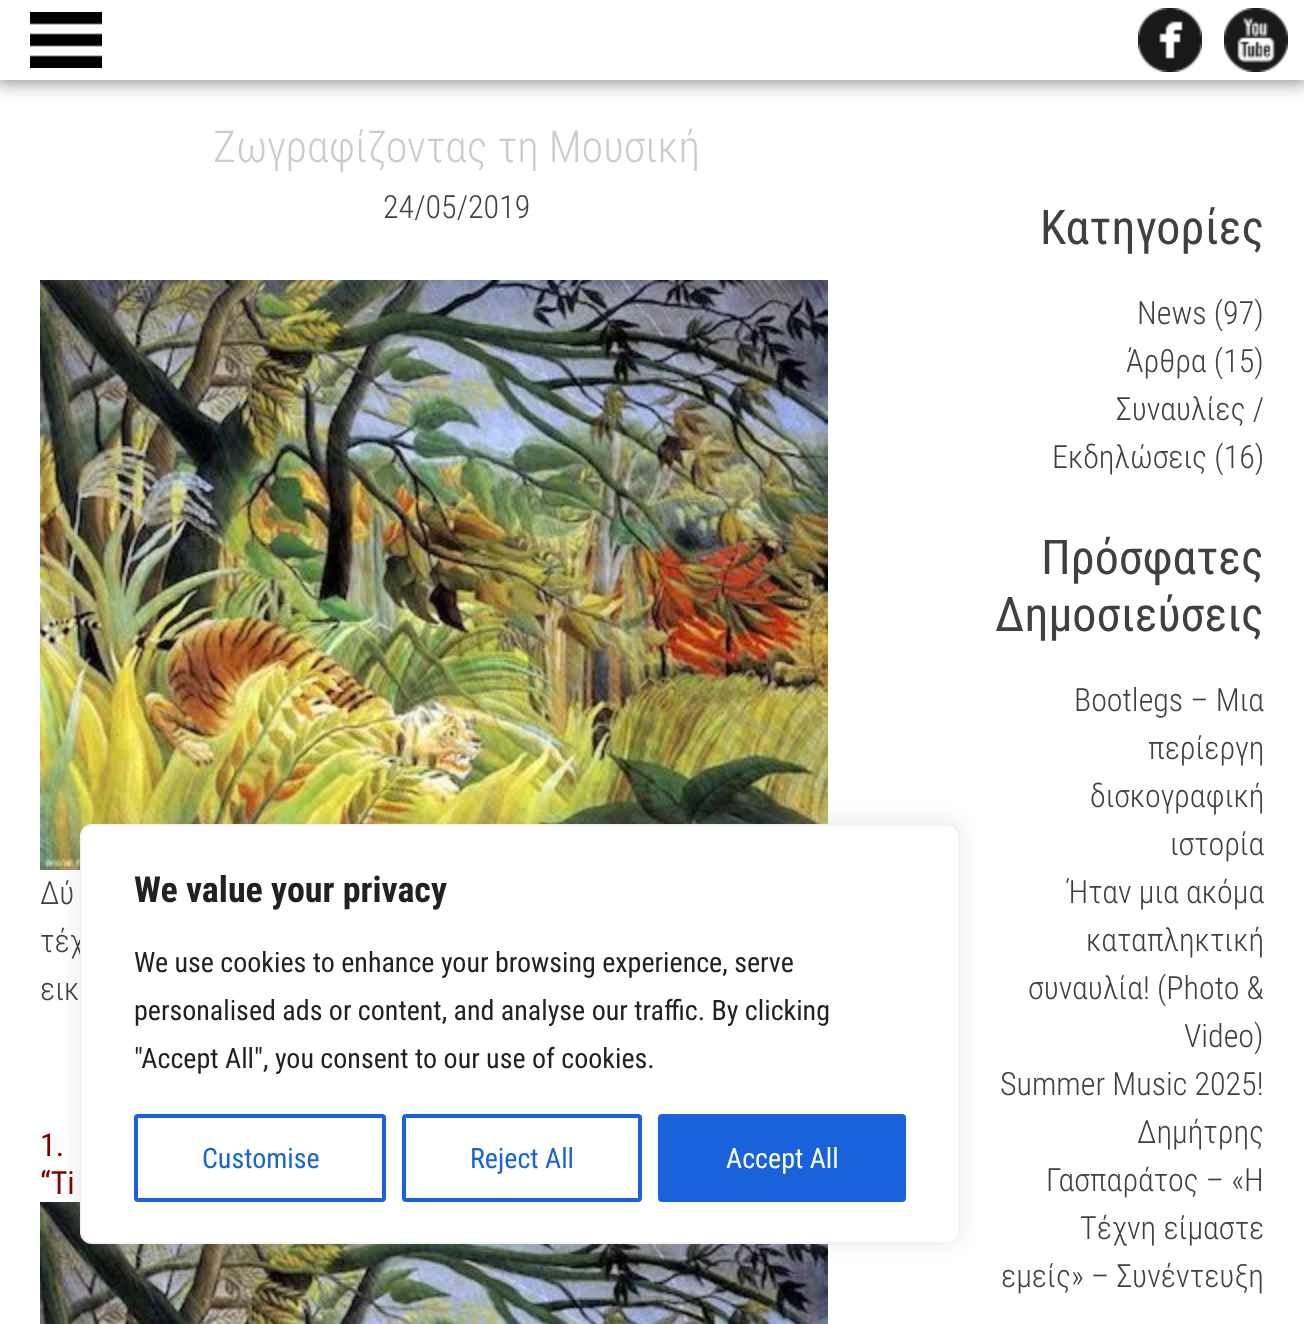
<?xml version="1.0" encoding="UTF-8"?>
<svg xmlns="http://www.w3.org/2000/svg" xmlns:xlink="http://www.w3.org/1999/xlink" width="1304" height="1324">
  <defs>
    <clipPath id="clip1"><rect x="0" y="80" width="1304" height="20" /></clipPath>
  </defs>
  <rect width="100%" height="100%" fill="#ffffff" />
  <g clip-path="url(#clip1)">
    <rect x="-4" y="-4" width="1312" height="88" fill="#999999" filter="blur(8px)" />
  </g>
  <image x="30" y="12" width="72" height="56" xlink:href="image1.png" />
  <image x="1138" y="8" width="64" height="64" xlink:href="image2.png" />
  <image x="1224" y="8" width="64" height="64" xlink:href="image3.png" />
  <image x="40" y="280" width="788" height="590" xlink:href="image4.png" />
  <image x="40" y="1202" width="788" height="122" xlink:href="image5.png" />
  <rect x="80" y="822" width="880" height="420" rx="12" fill="#acabab" fill-opacity="0.3" filter="blur(10px)" />
  <text x="213" y="162" style="font-family: Roboto Condensed; font-size: 44px; font-weight: 300; fill: #cccccc">Ζωγραφίζοντας τη Μουσική</text>
  <text x="383" y="218" style="font-family: Roboto Condensed; font-size: 32px; font-weight: 300; fill: #404040">24/05/2019</text>
  <text x="40" y="904" style="font-family: Roboto Condensed; font-size: 32px; font-weight: 300; fill: #404040">Δύ</text>
  <text x="40" y="952" style="font-family: Roboto Condensed; font-size: 32px; font-weight: 300; fill: #404040">τέχ</text>
  <text x="40" y="1000" style="font-family: Roboto Condensed; font-size: 32px; font-weight: 300; fill: #404040">εικ</text>
  <text x="40" y="1156" style="font-family: Roboto Condensed; font-size: 32px; fill: #800000">1.</text>
  <text x="40" y="1194" style="font-family: Roboto Condensed; font-size: 32px; fill: #800000">“Ti</text>
  <text x="1040" y="244" style="font-family: Roboto Condensed; font-size: 48px; fill: #404040">Κατηγορίες</text>
  <text x="1137" y="324" style="font-family: Roboto Condensed; font-size: 32px; font-weight: 300; fill: #404040">News (97)</text>
  <text x="1126" y="372" style="font-family: Roboto Condensed; font-size: 32px; font-weight: 300; fill: #404040">Άρθρα (15)</text>
  <text x="1116" y="420" style="font-family: Roboto Condensed; font-size: 32px; font-weight: 300; fill: #404040">Συναυλίες /</text>
  <text x="1052" y="468" style="font-family: Roboto Condensed; font-size: 32px; font-weight: 300; fill: #404040">Εκδηλώσεις (16)</text>
  <text x="1041" y="574" style="font-family: Roboto Condensed; font-size: 48px; fill: #404040">Πρόσφατες</text>
  <text x="995" y="631" style="font-family: Roboto Condensed; font-size: 48px; fill: #404040">Δημοσιεύσεις</text>
  <text x="1074" y="711" style="font-family: Roboto Condensed; font-size: 32px; font-weight: 300; fill: #404040">Bootlegs – Μια</text>
  <text x="1148" y="759" style="font-family: Roboto Condensed; font-size: 32px; font-weight: 300; fill: #404040">περίεργη</text>
  <text x="1090" y="807" style="font-family: Roboto Condensed; font-size: 32px; font-weight: 300; fill: #404040">δισκογραφική</text>
  <text x="1170" y="855" style="font-family: Roboto Condensed; font-size: 32px; font-weight: 300; fill: #404040">ιστορία</text>
  <text x="1067" y="903" style="font-family: Roboto Condensed; font-size: 32px; font-weight: 300; fill: #404040">Ήταν μια ακόμα</text>
  <text x="1086" y="951" style="font-family: Roboto Condensed; font-size: 32px; font-weight: 300; fill: #404040">καταπληκτική</text>
  <text x="1028" y="999" style="font-family: Roboto Condensed; font-size: 32px; font-weight: 300; fill: #404040">συναυλία! (Photo &amp;</text>
  <text x="1184" y="1047" style="font-family: Roboto Condensed; font-size: 32px; font-weight: 300; fill: #404040">Video)</text>
  <text x="1000" y="1095" style="font-family: Roboto Condensed; font-size: 32px; font-weight: 300; fill: #404040">Summer Music 2025!</text>
  <text x="1137" y="1143" style="font-family: Roboto Condensed; font-size: 32px; font-weight: 300; fill: #404040">Δημήτρης</text>
  <text x="1046" y="1191" style="font-family: Roboto Condensed; font-size: 32px; font-weight: 300; fill: #404040">Γασπαράτος – «Η</text>
  <text x="1080" y="1239" style="font-family: Roboto Condensed; font-size: 32px; font-weight: 300; fill: #404040">Τέχνη είμαστε</text>
  <text x="1001" y="1287" style="font-family: Roboto Condensed; font-size: 32px; font-weight: 300; fill: #404040">εμείς» – Συνέντευξη</text>
  <rect x="81" y="825" width="878" height="418" rx="11" fill="#ffffff" stroke="#f4f4f4" stroke-width="2" />
  <text x="134" y="902" style="font-family: Roboto Condensed; font-size: 36px; font-weight: bold; fill: #212121">We value your privacy</text>
  <text x="134" y="972" style="font-family: Roboto Condensed; font-size: 28px; fill: #212121">We use cookies to enhance your browsing experience, serve</text>
  <text x="134" y="1020" style="font-family: Roboto Condensed; font-size: 28px; fill: #212121">personalised ads or content, and analyse our traffic. By clicking</text>
  <text x="134" y="1068" style="font-family: Roboto Condensed; font-size: 28px; fill: #212121">"Accept All", you consent to our use of cookies.</text>
  <rect x="136" y="1116" width="248" height="84" rx="2" fill="none" stroke="#1863dc" stroke-width="4" />
  <text x="202" y="1168" style="font-family: Roboto Condensed; font-size: 28px; fill: #1863dc">Customise</text>
  <rect x="404" y="1116" width="236" height="84" rx="2" fill="none" stroke="#1863dc" stroke-width="4" />
  <text x="470" y="1168" style="font-family: Roboto Condensed; font-size: 28px; fill: #1863dc">Reject All</text>
  <rect x="660" y="1116" width="244" height="84" rx="2" fill="#1863dc" stroke="#1863dc" stroke-width="4" />
  <text x="726" y="1168" style="font-family: Roboto Condensed; font-size: 28px; fill: #ffffff">Accept All</text>
</svg>
